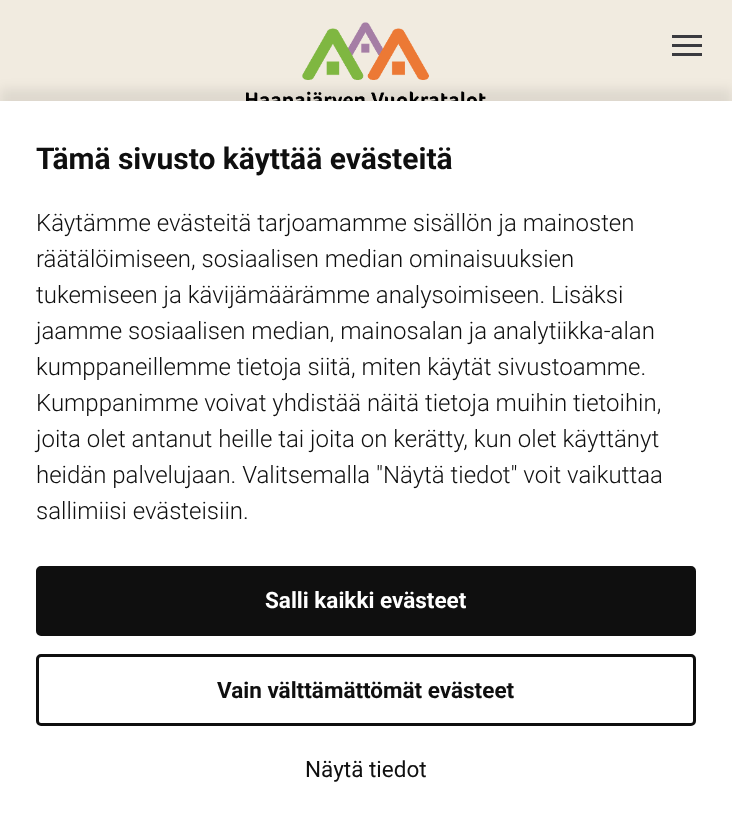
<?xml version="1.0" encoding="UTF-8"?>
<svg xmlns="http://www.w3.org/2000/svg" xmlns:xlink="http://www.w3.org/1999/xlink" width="732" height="830">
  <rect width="100%" height="100%" fill="#f1ebe0" />
  <image x="246" y="22" width="240" height="79" xlink:href="image1.png" />
  <rect x="672" y="53" width="30" height="3" fill="#3a3a3f" />
  <rect x="672" y="35" width="30" height="3" fill="#3a3a3f" />
  <rect x="672" y="44" width="30" height="3" fill="#3a3a3f" />
  <rect y="89" width="732" height="730" fill="#000000" fill-opacity="0.08" filter="blur(6px)" />
  <rect y="101" width="732" height="729" fill="#ffffff" />
  <rect x="37.5" y="567.5" width="657" height="67" rx="3.5" fill="#0f0f0f" stroke="#0f0f0f" stroke-width="3" />
  <rect x="37.5" y="655.5" width="657" height="69" rx="3.5" fill="none" stroke="#0f0f0f" stroke-width="3" />
  <text x="36" y="169" style="font-family: Roboto; font-size: 30px; font-weight: bold; fill: #0f0f0f">Tämä sivusto käyttää evästeitä</text>
  <text x="36" y="231" style="font-family: Roboto; font-size: 24px; font-weight: 300; fill: #0f0f0f">Käytämme evästeitä tarjoamamme sisällön ja mainosten</text>
  <text x="36" y="267" style="font-family: Roboto; font-size: 24px; font-weight: 300; fill: #0f0f0f">räätälöimiseen, sosiaalisen median ominaisuuksien</text>
  <text x="36" y="303" style="font-family: Roboto; font-size: 24px; font-weight: 300; fill: #0f0f0f">tukemiseen ja kävijämäärämme analysoimiseen. Lisäksi</text>
  <text x="36" y="339" style="font-family: Roboto; font-size: 24px; font-weight: 300; fill: #0f0f0f">jaamme sosiaalisen median, mainosalan ja analytiikka-alan</text>
  <text x="36" y="375" style="font-family: Roboto; font-size: 24px; font-weight: 300; fill: #0f0f0f">kumppaneillemme tietoja siitä, miten käytät sivustoamme.</text>
  <text x="36" y="411" style="font-family: Roboto; font-size: 24px; font-weight: 300; fill: #0f0f0f">Kumppanimme voivat yhdistää näitä tietoja muihin tietoihin,</text>
  <text x="36" y="447" style="font-family: Roboto; font-size: 24px; font-weight: 300; fill: #0f0f0f">joita olet antanut heille tai joita on kerätty, kun olet käyttänyt</text>
  <text x="36" y="483" style="font-family: Roboto; font-size: 24px; font-weight: 300; fill: #0f0f0f">heidän palvelujaan. Valitsemalla "Näytä tiedot" voit vaikuttaa</text>
  <text x="36" y="519" style="font-family: Roboto; font-size: 24px; font-weight: 300; fill: #0f0f0f">sallimiisi evästeisiin.</text>
  <text x="265" y="608" style="font-family: Roboto; font-size: 22.5px; font-weight: bold; fill: #ffffff">Salli kaikki evästeet</text>
  <text x="217" y="698" style="font-family: Roboto; font-size: 22.5px; font-weight: bold; fill: #0f0f0f">Vain välttämättömät evästeet</text>
  <text x="305" y="777" style="font-family: Roboto; font-size: 22.5px; fill: #0f0f0f">Näytä tiedot</text>
</svg>
